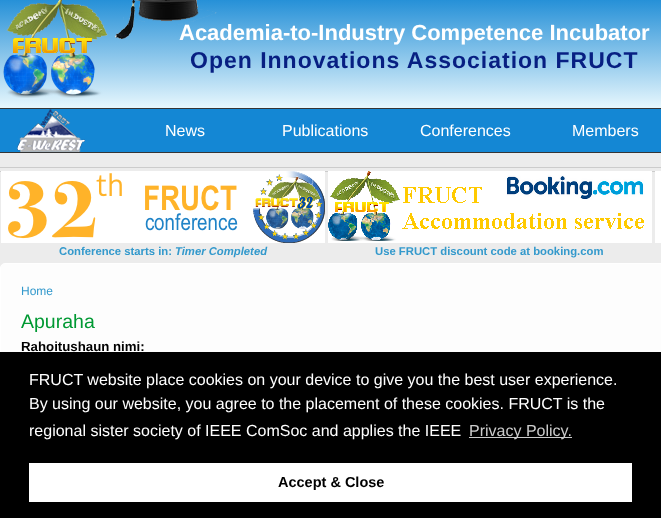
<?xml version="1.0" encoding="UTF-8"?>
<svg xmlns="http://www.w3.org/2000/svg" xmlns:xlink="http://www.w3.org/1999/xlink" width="661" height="518">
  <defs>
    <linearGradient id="g1" gradientUnits="userSpaceOnUse" x1="331" y1="-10" x2="331" y2="108"><stop offset="0" stop-color="#1487d4" /><stop offset="1" stop-color="#e7f7fd" /></linearGradient>
  </defs>
  <rect width="100%" height="100%" fill="#ececec" />
  <rect width="661" height="108" fill="url(#g1)" />
  <image x="3" y="0" width="105" height="98" xlink:href="image1.png" />
  <rect y="109" width="661" height="43" fill="#1487d4" />
  <rect y="108" width="661" height="1" fill="#353535" />
  <rect y="152" width="661" height="1" fill="#353535" />
  <image x="17" y="109" width="68" height="43" xlink:href="image3.png" />
  <rect y="167" width="661" height="1" fill="#cccccc" />
  <rect y="171" width="661" height="1" fill="#cccccc" />
  <rect x="655" y="171" width="6" height="72" fill="#ffffff" />
  <image x="1" y="171" width="324" height="72" xlink:href="image4.png" />
  <image x="328" y="171" width="324" height="72" xlink:href="image5.png" />
  <rect x="0.5" y="263.5" width="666" height="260" rx="4.5" fill="#fdfdfd" stroke="#ffffff" />
  <rect y="352" width="661" height="166" fill="#000000" />
  <rect x="469" y="437" width="103" height="1" fill="#cccccc" />
  <rect x="29" y="463" width="603" height="39" fill="#ffffff" />
  <text x="179" y="40" style="font-family: Liberation Sans; font-size: 22px; font-weight: bold; fill: #ffffff">Academia-to-Industry Competence Incubator</text>
  <image x="115" y="0" width="102" height="39" xlink:href="image2.png" />
  <text x="190" y="68" style="font-family: Liberation Sans; font-size: 23px; font-weight: bold; letter-spacing: 1px; fill: #071f82">Open Innovations Association FRUCT</text>
  <text x="165" y="136" style="font-family: Liberation Sans; font-size: 16px; fill: #ffffff">News</text>
  <text x="282" y="136" style="font-family: Liberation Sans; font-size: 16px; fill: #ffffff">Publications</text>
  <text x="420" y="136" style="font-family: Liberation Sans; font-size: 16px; fill: #ffffff">Conferences</text>
  <text x="572" y="136" style="font-family: Liberation Sans; font-size: 16px; fill: #ffffff">Members</text>
  <text x="59" y="255" style="font-family: Liberation Sans; font-size: 11.3px; font-weight: bold; fill: #3399cc">Conference starts in:</text>
  <text x="175" y="255" style="font-family: Liberation Sans; font-size: 11.3px; font-weight: bold; font-style: italic; fill: #3399cc">Timer Completed</text>
  <text x="375" y="255" style="font-family: Liberation Sans; font-size: 11.3px; font-weight: bold; fill: #3399cc">Use FRUCT discount code at booking.com</text>
  <text x="21" y="295" style="font-family: Liberation Sans; font-size: 12px; fill: #3399cc">Home</text>
  <text x="21" y="328" style="font-family: Liberation Sans; font-size: 19.5px; fill: #009933">Apuraha</text>
  <text x="21" y="351" style="font-family: Liberation Sans; font-size: 13.25px; font-weight: bold; fill: #000000">Rahoitushaun nimi:</text>
  <text x="29" y="385" style="font-family: Liberation Sans; font-size: 16px; fill: #ffffff">FRUCT website place cookies on your device to give you the best user experience.</text>
  <text x="29" y="409" style="font-family: Liberation Sans; font-size: 16px; fill: #ffffff">By using our website, you agree to the placement of these cookies. FRUCT is the</text>
  <text x="29" y="436" style="font-family: Liberation Sans; font-size: 16px; fill: #ffffff">regional sister society of IEEE ComSoc and applies the IEEE</text>
  <text x="469" y="436" style="font-family: Liberation Sans; font-size: 16px; fill: #cccccc">Privacy Policy.</text>
  <text x="278" y="487" style="font-family: Liberation Sans; font-size: 14.5px; font-weight: bold; fill: #000000">Accept &amp; Close</text>
</svg>
